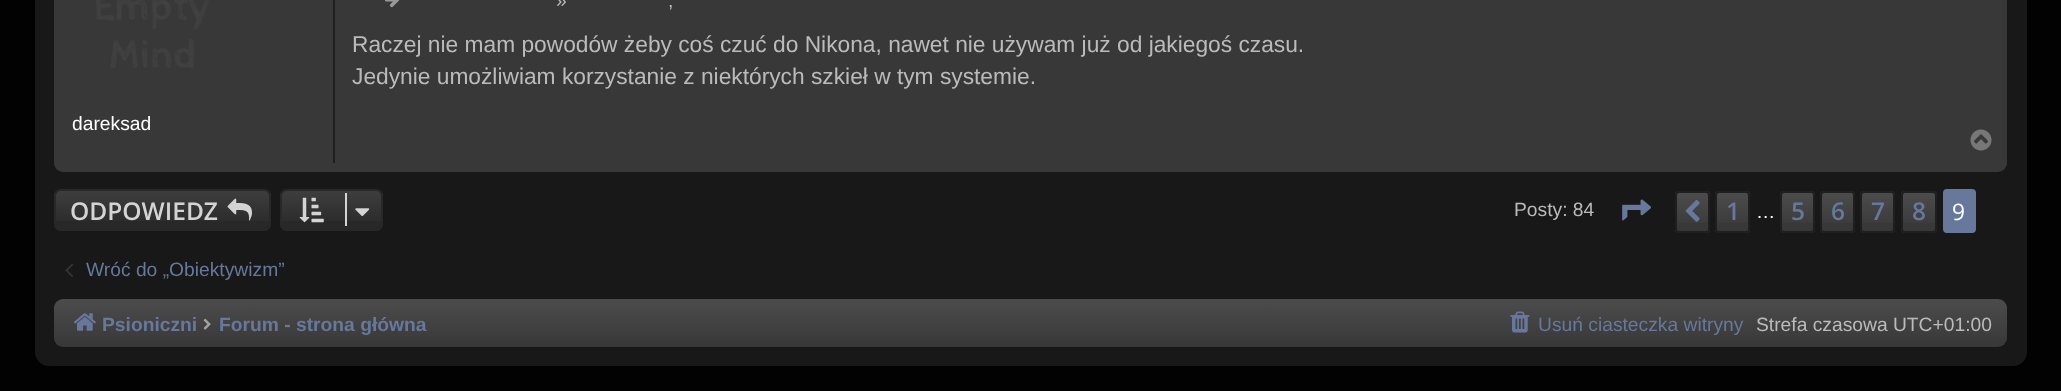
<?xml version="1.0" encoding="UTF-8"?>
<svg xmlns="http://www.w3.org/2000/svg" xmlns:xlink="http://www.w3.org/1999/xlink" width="2061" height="391">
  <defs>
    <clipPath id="clip1"><rect x="54" y="189" width="217" height="42" rx="7" /></clipPath>
    <linearGradient id="g1" gradientUnits="userSpaceOnUse" x1="163" y1="191" x2="163" y2="229"><stop offset="0" stop-color="#ffffff" stop-opacity="0.1" /><stop offset="1" stop-color="#ffffff" stop-opacity="0" /></linearGradient>
    <clipPath id="clip2"><rect x="280" y="189" width="103" height="42" rx="7" /></clipPath>
    <linearGradient id="g2" gradientUnits="userSpaceOnUse" x1="332" y1="191" x2="332" y2="229"><stop offset="0" stop-color="#ffffff" stop-opacity="0.1" /><stop offset="1" stop-color="#ffffff" stop-opacity="0" /></linearGradient>
    <linearGradient id="g3" gradientUnits="userSpaceOnUse" x1="1692" y1="193" x2="1692" y2="231"><stop offset="0" stop-color="#ffffff" stop-opacity="0.1" /><stop offset="1" stop-color="#ffffff" stop-opacity="0" /></linearGradient>
    <linearGradient id="g4" gradientUnits="userSpaceOnUse" x1="1733" y1="193" x2="1733" y2="231"><stop offset="0" stop-color="#ffffff" stop-opacity="0.1" /><stop offset="1" stop-color="#ffffff" stop-opacity="0" /></linearGradient>
    <linearGradient id="g5" gradientUnits="userSpaceOnUse" x1="1797" y1="193" x2="1797" y2="231"><stop offset="0" stop-color="#ffffff" stop-opacity="0.1" /><stop offset="1" stop-color="#ffffff" stop-opacity="0" /></linearGradient>
    <linearGradient id="g6" gradientUnits="userSpaceOnUse" x1="1838" y1="193" x2="1838" y2="231"><stop offset="0" stop-color="#ffffff" stop-opacity="0.1" /><stop offset="1" stop-color="#ffffff" stop-opacity="0" /></linearGradient>
    <linearGradient id="g7" gradientUnits="userSpaceOnUse" x1="1878" y1="193" x2="1878" y2="231"><stop offset="0" stop-color="#ffffff" stop-opacity="0.1" /><stop offset="1" stop-color="#ffffff" stop-opacity="0" /></linearGradient>
    <linearGradient id="g8" gradientUnits="userSpaceOnUse" x1="1919" y1="193" x2="1919" y2="231"><stop offset="0" stop-color="#ffffff" stop-opacity="0.1" /><stop offset="1" stop-color="#ffffff" stop-opacity="0" /></linearGradient>
    <linearGradient id="g9" gradientUnits="userSpaceOnUse" x1="1031" y1="299" x2="1031" y2="347"><stop offset="0" stop-color="#ffffff" stop-opacity="0.1" /><stop offset="1" stop-color="#ffffff" stop-opacity="0" /></linearGradient>
  </defs>
  <rect width="100%" height="100%" fill="#020202" />
  <rect x="36" y="-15" width="1990" height="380" rx="13" fill="#181818" stroke="#181818" stroke-width="2" />
  <rect x="54" y="-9" width="1953" height="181" rx="9" fill="#383838" />
  <image x="385" y="0" width="15" height="8" xlink:href="image1.png" />
  <rect x="333" width="2" height="163" fill="#1f1f1f" />
  <image x="96" y="0" width="113" height="68" xlink:href="image2.png" />
  <image x="1970" y="129" width="22" height="22" xlink:href="image3.png" />
  <rect x="54" y="189" width="217" height="42" rx="7" fill="#282828" />
  <g clip-path="url(#clip1)">
    <rect x="54" y="191" width="217" height="30" fill="url(#g1)" />
  </g>
  <rect x="55" y="190" width="215" height="40" rx="6" fill="none" stroke="#282828" stroke-width="2" />
  <image x="227" y="198" width="25" height="23" xlink:href="image4.png" />
  <rect x="280" y="189" width="103" height="42" rx="7" fill="#282828" />
  <g clip-path="url(#clip2)">
    <rect x="280" y="191" width="103" height="30" fill="url(#g2)" />
  </g>
  <rect x="281" y="190" width="101" height="40" rx="6" fill="none" stroke="#282828" stroke-width="2" />
  <image x="299" y="197" width="25" height="26" xlink:href="image5.png" />
  <rect x="345" y="193" width="2" height="33" fill="#d4d4d4" />
  <image x="355" y="208" width="15" height="9" xlink:href="image6.png" />
  <image x="1622" y="199" width="29" height="22" xlink:href="image7.png" />
  <rect x="1675" y="191" width="35" height="42" rx="4" fill="#383838" />
  <rect x="1675" y="193" width="35" height="30" fill="url(#g3)" />
  <rect x="1676" y="192" width="33" height="40" rx="3" fill="none" stroke="#1f1f1f" stroke-width="2" />
  <image x="1685" y="200" width="15" height="22" xlink:href="image8.png" />
  <rect x="1715" y="191" width="35" height="42" rx="4" fill="#383838" />
  <rect x="1715" y="193" width="35" height="30" fill="url(#g4)" />
  <rect x="1716" y="192" width="33" height="40" rx="3" fill="none" stroke="#1f1f1f" stroke-width="2" />
  <rect x="1780" y="191" width="35" height="42" rx="4" fill="#383838" />
  <rect x="1780" y="193" width="35" height="30" fill="url(#g5)" />
  <rect x="1781" y="192" width="33" height="40" rx="3" fill="none" stroke="#1f1f1f" stroke-width="2" />
  <rect x="1820" y="191" width="35" height="42" rx="4" fill="#383838" />
  <rect x="1820" y="193" width="35" height="30" fill="url(#g6)" />
  <rect x="1821" y="192" width="33" height="40" rx="3" fill="none" stroke="#1f1f1f" stroke-width="2" />
  <rect x="1860" y="191" width="35" height="42" rx="4" fill="#383838" />
  <rect x="1860" y="193" width="35" height="30" fill="url(#g7)" />
  <rect x="1861" y="192" width="33" height="40" rx="3" fill="none" stroke="#1f1f1f" stroke-width="2" />
  <rect x="1901" y="191" width="36" height="42" rx="4" fill="#383838" />
  <rect x="1901" y="193" width="36" height="30" fill="url(#g8)" />
  <rect x="1902" y="192" width="34" height="40" rx="3" fill="none" stroke="#1f1f1f" stroke-width="2" />
  <rect x="1944" y="190" width="31" height="42" rx="3" fill="#67789c" stroke="#67789c" stroke-width="2" />
  <image x="65" y="263" width="9" height="14" xlink:href="image9.png" />
  <rect x="54" y="299" width="1953" height="48" rx="9" fill="#383838" />
  <rect x="54" y="299" width="1953" height="48" rx="9" fill="url(#g9)" />
  <image x="74" y="313" width="22" height="18" xlink:href="image10.png" />
  <image x="203" y="318" width="8" height="12" xlink:href="image11.png" />
  <image x="1510" y="311" width="20" height="22" xlink:href="image12.png" />
  <text x="556" y="7" style="font-family: Liberation Sans; font-size: 19.25px; fill: #bbbbbb">»</text>
  <text x="668" y="7" style="font-family: Liberation Sans; font-size: 19.25px; fill: #bbbbbb">,</text>
  <text x="352" y="52" style="font-family: Liberation Sans; font-size: 22.75px; fill: #bbbbbb">Raczej nie mam powodów żeby coś czuć do Nikona, nawet nie używam już od jakiegoś czasu.</text>
  <text x="352" y="84" style="font-family: Liberation Sans; font-size: 22.75px; fill: #bbbbbb">Jedynie umożliwiam korzystanie z niektórych szkieł w tym systemie.</text>
  <text x="72" y="130" style="font-family: Liberation Sans; font-size: 19.25px; fill: #ffffff">dareksad</text>
  <text x="70" y="220" style="font-family: Open Sans; font-size: 24.5px; font-weight: 600; fill: #d4d4d4">ODPOWIEDZ</text>
  <text x="1514" y="216" style="font-family: Liberation Sans; font-size: 19.25px; fill: #bbbbbb">Posty: 84</text>
  <text x="1726" y="220" style="font-family: Open Sans; font-size: 24.5px; font-weight: 600; fill: #67789c">1</text>
  <text x="1756" y="218" style="font-family: Liberation Sans; font-size: 19.25px; fill: #ffffff">…</text>
  <text x="1791" y="220" style="font-family: Open Sans; font-size: 24.5px; font-weight: 600; fill: #67789c">5</text>
  <text x="1831" y="220" style="font-family: Open Sans; font-size: 24.5px; font-weight: 600; fill: #67789c">6</text>
  <text x="1871" y="220" style="font-family: Open Sans; font-size: 24.5px; font-weight: 600; fill: #67789c">7</text>
  <text x="1912" y="220" style="font-family: Open Sans; font-size: 24.5px; font-weight: 600; fill: #67789c">8</text>
  <text x="1952" y="220" style="font-family: Open Sans; font-size: 22.75px; fill: #ffffff">9</text>
  <text x="86" y="276" style="font-family: Liberation Sans; font-size: 19.25px; fill: #67789c">Wróć do „Obiektywizm”</text>
  <text x="102" y="331" style="font-family: Liberation Sans; font-size: 19.25px; font-weight: bold; fill: #67789c">Psioniczni</text>
  <text x="219" y="331" style="font-family: Liberation Sans; font-size: 19.25px; font-weight: bold; fill: #67789c">Forum - strona główna</text>
  <text x="1538" y="331" style="font-family: Liberation Sans; font-size: 19.25px; fill: #67789c">Usuń ciasteczka witryny</text>
  <text x="1756" y="331" style="font-family: Liberation Sans; font-size: 19.25px; fill: #bbbbbb">Strefa czasowa UTC+01:00</text>
</svg>
